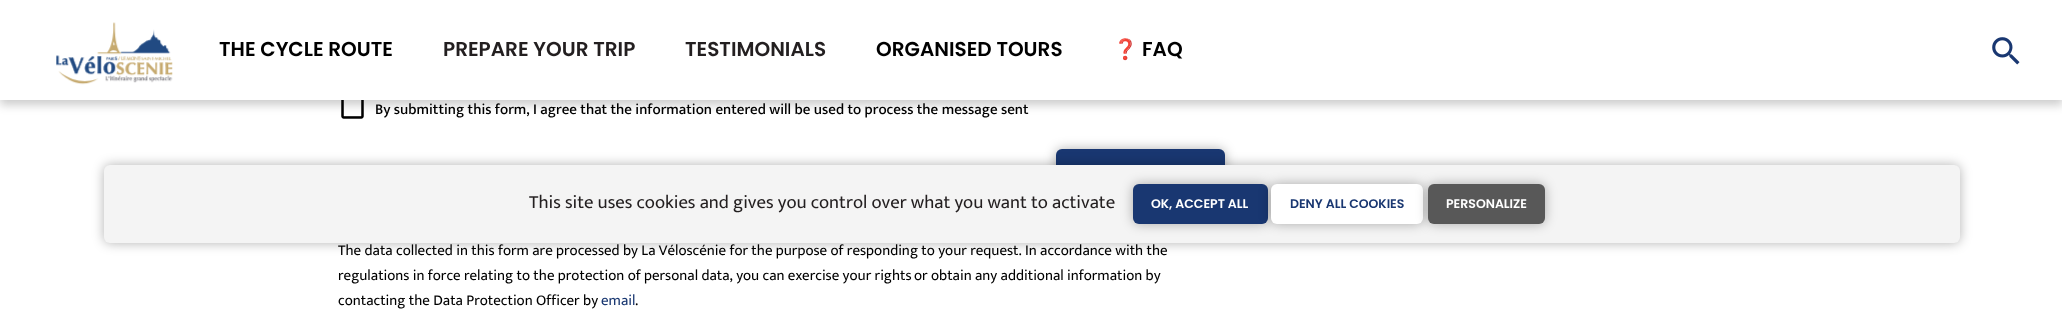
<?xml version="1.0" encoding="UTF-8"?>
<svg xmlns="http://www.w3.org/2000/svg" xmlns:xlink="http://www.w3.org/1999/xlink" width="2062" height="329">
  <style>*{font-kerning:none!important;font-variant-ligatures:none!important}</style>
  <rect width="100%" height="100%" fill="#ffffff" />
  <image x="341" y="100" width="23" height="19" xlink:href="image3.png" />
  <rect y="-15" width="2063" height="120" fill="#000000" fill-opacity="0.2" filter="blur(5px)" />
  <rect width="2062" height="100" fill="#ffffff" />
  <image x="56" y="22" width="117" height="63" xlink:href="image1.png" />
  <image x="1992" y="37" width="28" height="28" xlink:href="image2.png" />
  <rect x="1056" y="149" width="169" height="51" rx="6" fill="#000000" fill-opacity="0.3" filter="blur(6px)" />
  <rect x="1056" y="149" width="169" height="51" rx="6" fill="#193771" />
  <rect x="104" y="165" width="1856" height="78" rx="6" fill="#000000" fill-opacity="0.3" filter="blur(6px)" />
  <rect x="104" y="165" width="1856" height="78" rx="6" fill="#f4f4f4" />
  <rect x="1133" y="184" width="135" height="40" rx="6" fill="#000000" fill-opacity="0.3" filter="blur(6px)" />
  <rect x="1133" y="184" width="135" height="40" rx="6" fill="#193771" />
  <rect x="1271" y="184" width="152" height="40" rx="6" fill="#000000" fill-opacity="0.3" filter="blur(6px)" />
  <rect x="1271" y="184" width="152" height="40" rx="6" fill="#ffffff" />
  <rect x="1428" y="184" width="117" height="40" rx="6" fill="#000000" fill-opacity="0.3" filter="blur(6px)" />
  <rect x="1428" y="184" width="117" height="40" rx="6" fill="#585858" />
  <text x="219" y="56" style="font-family: Poppins; font-size: 20px; font-weight: 600; fill: #000000">THE CYCLE ROUTE</text>
  <text x="443" y="56" style="font-family: Poppins; font-size: 20px; font-weight: 600; fill: #231f20">PREPARE YOUR TRIP</text>
  <text x="685" y="56" style="font-family: Poppins; font-size: 20px; font-weight: 600; fill: #231f20">TESTIMONIALS</text>
  <text x="876" y="56" style="font-family: Poppins; font-size: 20px; font-weight: 600; fill: #000000">ORGANISED TOURS</text>
  <text x="1113" y="56" style="font-family: Noto Color Emoji; font-size: 20px; font-weight: bold; fill: #000000">❓</text>
  <text x="1142" y="56" style="font-family: Poppins; font-size: 20px; font-weight: 600; fill: #000000">FAQ</text>
  <text x="375" y="114" style="font-family: Mukta Mahee; font-size: 15px; font-weight: 500; fill: #000000">By submitting this form, I agree that the information entered will be used to process the message sent</text>
  <text x="338" y="255" style="font-family: Mukta Mahee; font-size: 15px; fill: #000000">The data collected in this form are processed by La Véloscénie for the purpose of responding to your request.</text>
  <text x="1025" y="255" style="font-family: Mukta Mahee; font-size: 15px; fill: #000000">In accordance with the</text>
  <text x="338" y="280" style="font-family: Mukta Mahee; font-size: 15px; fill: #000000">regulations in force relating to the protection of personal data, you can exercise your rights</text>
  <text x="914" y="280" style="font-family: Mukta Mahee; font-size: 15px; fill: #000000">or obtain any additional information by</text>
  <text x="338" y="305" style="font-family: Mukta Mahee; font-size: 15px; fill: #000000">contacting the Data Protection Officer by</text>
  <text x="601" y="305" style="font-family: Mukta Mahee; font-size: 15px; fill: #193771">email</text>
  <text x="635" y="305" style="font-family: Mukta Mahee; font-size: 15px; fill: #000000">.</text>
  <text x="529" y="208" style="font-family: Mukta Mahee; font-size: 18.75px; fill: #231f20">This site uses cookies and gives you control over what you want to activate</text>
  <text x="1151" y="208" style="font-family: Poppins; font-size: 12.5px; font-weight: 600; fill: #ffffff">OK, ACCEPT ALL</text>
  <text x="1290" y="208" style="font-family: Poppins; font-size: 12.5px; font-weight: 600; fill: #193771">DENY ALL COOKIES</text>
  <text x="1446" y="208" style="font-family: Poppins; font-size: 12.5px; font-weight: 600; fill: #ffffff">PERSONALIZE</text>
</svg>
